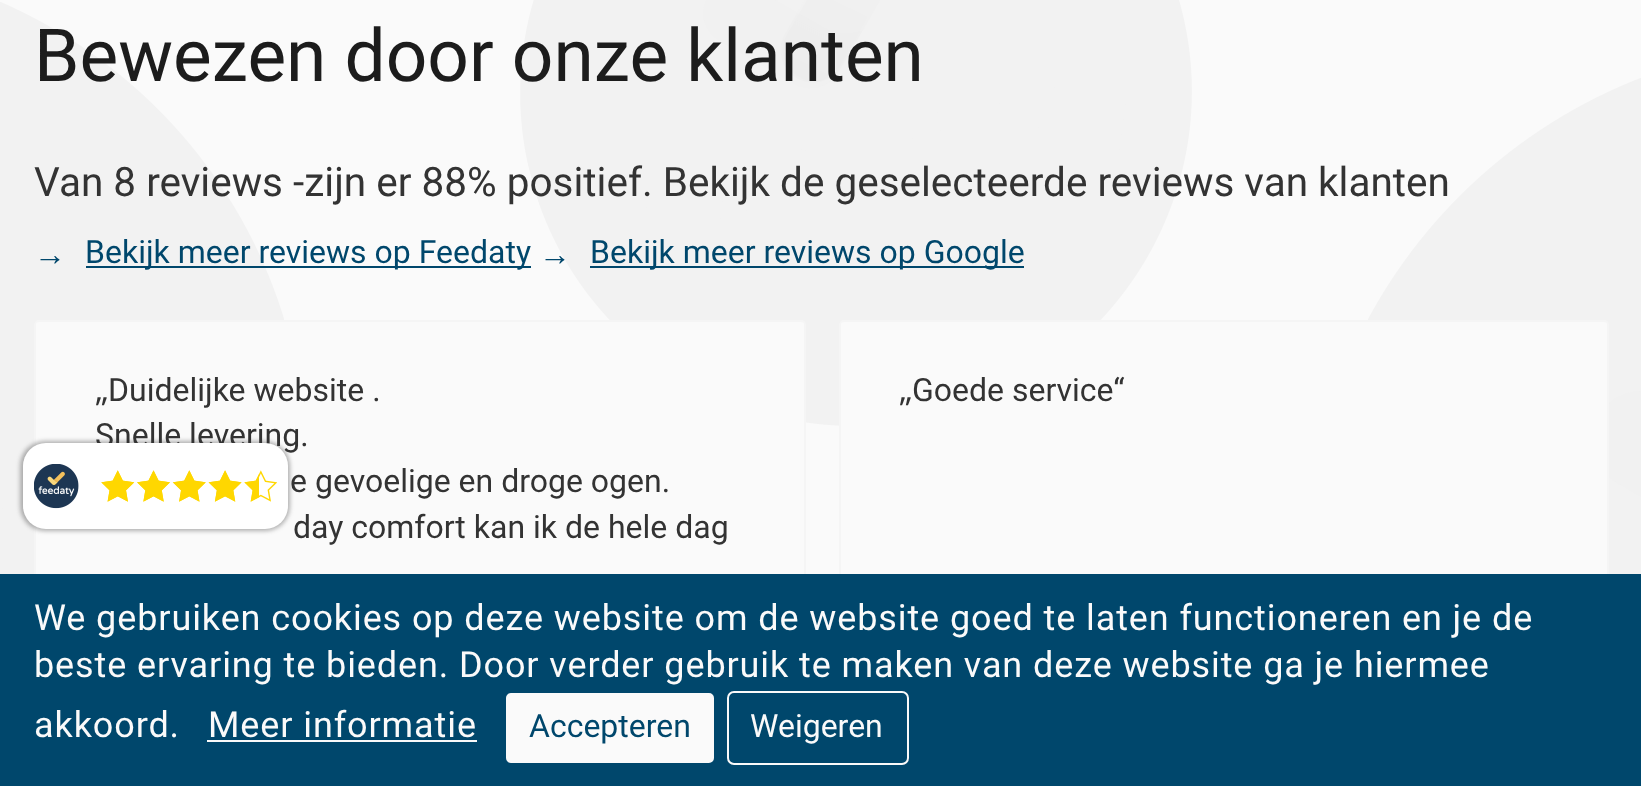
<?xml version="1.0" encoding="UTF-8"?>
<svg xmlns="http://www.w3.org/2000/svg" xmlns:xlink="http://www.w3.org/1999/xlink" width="1641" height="786">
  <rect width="100%" height="100%" fill="#fafafa" />
  <image x="1368" y="78" width="273" height="496" xlink:href="image1.png" />
  <image x="520" y="0" width="672" height="426" xlink:href="image2.png" />
  <image x="0" y="2" width="284" height="572" xlink:href="image3.png" />
  <rect x="86" y="266" width="445" height="2" fill="#00476c" />
  <rect x="590" y="266" width="434" height="2" fill="#00476c" />
  <rect x="35" y="321" width="770" height="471" rx="4" fill="#fafafa" stroke="#f5f5f5" stroke-width="2" />
  <rect x="840" y="321" width="768" height="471" rx="4" fill="#fafafa" stroke="#f5f5f5" stroke-width="2" />
  <rect x="20" y="441" width="270" height="90" rx="25" fill="#414141" fill-opacity="0.4" filter="blur(2px)" />
  <rect y="574" width="1641" height="212" fill="#00476c" />
  <rect x="207" y="740" width="270" height="2" fill="#fafafa" />
  <rect x="505" y="692" width="210" height="72" rx="6" fill="#fafafa" stroke="#00476c" stroke-width="2" />
  <rect x="728" y="692" width="180" height="72" rx="6" fill="none" stroke="#fafafa" stroke-width="2" />
  <text x="34" y="81" style="font-family: Roboto; font-size: 73px; fill: #1c1c1c">Bewezen door onze klanten</text>
  <text x="34" y="196" style="font-family: Roboto; font-size: 40.5px; fill: #333333">Van 8 reviews -zijn er 88% positief. Bekijk de geselecteerde reviews van klanten</text>
  <text x="34" y="265" style="font-family: Liberation Sans; font-size: 32px; fill: #00476c">→</text>
  <text x="85" y="263" style="font-family: Roboto; font-size: 32px; fill: #00476c">Bekijk meer reviews op Feedaty</text>
  <text x="539" y="265" style="font-family: Liberation Sans; font-size: 32px; fill: #00476c">→</text>
  <text x="590" y="263" style="font-family: Roboto; font-size: 32px; fill: #00476c">Bekijk meer reviews op Google</text>
  <text x="95" y="401" style="font-family: Noto Sans; font-size: 32px; fill: #333333">„</text>
  <text x="108" y="401" style="font-family: Roboto; font-size: 32px; fill: #333333">Duidelijke website .</text>
  <text x="95" y="446" style="font-family: Roboto; font-size: 32px; fill: #333333">Snelle levering.</text>
  <text x="290" y="492" style="font-family: Roboto; font-size: 32px; fill: #333333">e gevoelige en droge ogen.</text>
  <text x="293" y="538" style="font-family: Roboto; font-size: 32px; fill: #333333">day comfort kan ik de hele dag</text>
  <text x="899" y="401" style="font-family: Noto Sans; font-size: 32px; fill: #333333">„</text>
  <text x="912" y="401" style="font-family: Roboto; font-size: 32px; fill: #333333">Goede service“</text>
  <rect x="23" y="443" width="265" height="86" rx="23" fill="#ffffff" />
  <image x="34" y="464" width="45" height="45" xlink:href="image4.png" />
  <image x="101" y="470" width="176" height="32" xlink:href="image5.png" />
  <image x="101" y="470" width="158" height="32" xlink:href="image6.png" />
  <text x="34" y="630" style="font-family: Roboto; font-size: 36px; letter-spacing: 0.9px; fill: #fafafa">We gebruiken cookies op deze website om de website goed te laten functioneren en je de</text>
  <text x="34" y="677" style="font-family: Roboto; font-size: 36px; letter-spacing: 0.9px; fill: #fafafa">beste ervaring te bieden. Door verder gebruik te maken van deze website ga je hiermee</text>
  <text x="34" y="737" style="font-family: Roboto; font-size: 36px; letter-spacing: 0.9px; fill: #fafafa">akkoord.</text>
  <text x="208" y="737" style="font-family: Roboto; font-size: 36px; letter-spacing: 0.9px; fill: #fafafa">Meer informatie</text>
  <text x="529" y="737" style="font-family: Roboto; font-size: 32px; fill: #00476c">Accepteren</text>
  <text x="750" y="737" style="font-family: Roboto; font-size: 32px; fill: #fafafa">Weigeren</text>
</svg>
